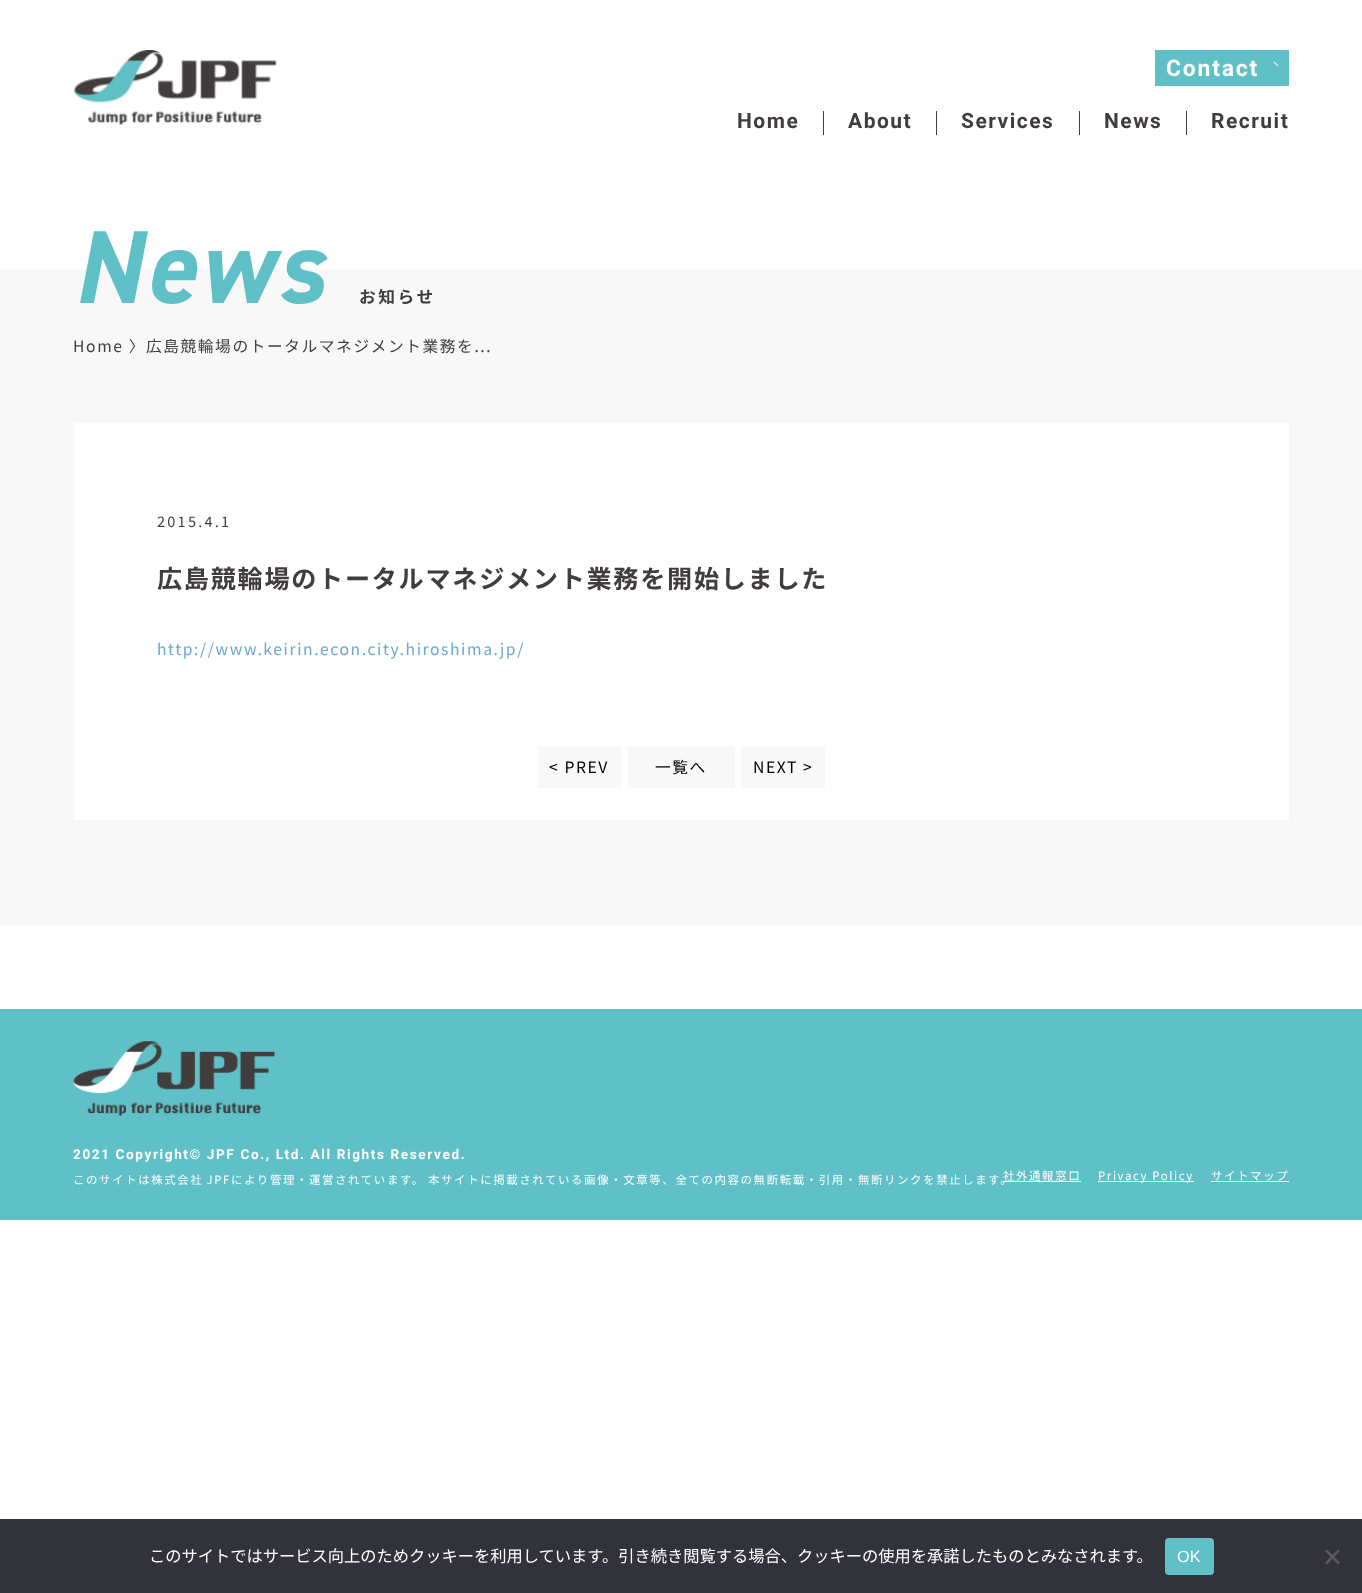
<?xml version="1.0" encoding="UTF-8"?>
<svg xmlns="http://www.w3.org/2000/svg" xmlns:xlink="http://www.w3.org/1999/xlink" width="1362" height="1593">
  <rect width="100%" height="100%" fill="#ffffff" />
  <image x="73" y="50" width="204" height="75" xlink:href="image1.png" />
  <rect x="1155" y="50" width="134" height="36" fill="#5fc1c7" />
  <image x="1273" y="61" width="6" height="5" xlink:href="image2.png" />
  <rect x="823" y="111" width="1" height="24" fill="#413d3c" />
  <rect x="936" y="111" width="1" height="24" fill="#413d3c" />
  <rect x="1079" y="111" width="1" height="24" fill="#413d3c" />
  <rect x="1186" y="111" width="1" height="24" fill="#413d3c" />
  <rect y="269" width="1362" height="656" fill="#f8f8f8" />
  <rect x="74" y="423" width="1215" height="397" fill="#ffffff" />
  <rect x="538" y="746" width="83" height="42" fill="#f8f8f8" />
  <rect x="628" y="746" width="107" height="42" fill="#f8f8f8" />
  <rect x="741" y="746" width="84" height="42" fill="#f8f8f8" />
  <rect y="1009" width="1362" height="211" fill="#5fc1c7" />
  <image x="73" y="1041" width="203" height="76" xlink:href="image3.png" />
  <rect x="1003" y="1181" width="78" height="1" fill="#ffffff" />
  <rect x="1098" y="1181" width="96" height="1" fill="#ffffff" />
  <rect x="1211" y="1181" width="78" height="1" fill="#ffffff" />
  <rect y="1519" width="1362" height="74" fill="#32323a" />
  <rect x="1165" y="1538" width="49" height="37" rx="4" fill="#5fc1c7" />
  <path d="M 1338 1549.5 l 2 1.5 l -13 13.5 l -2 -2 z" fill="#59595d" />
  <path d="M 1325 1551 l 2 -1.5 l 13 13 l -2 2 z" fill="#59595d" />
  <text x="1166" y="76" style="font-family: Roboto; font-size: 23px; font-weight: bold; letter-spacing: 1.75px; fill: #ffffff">Contact</text>
  <text x="737" y="128" style="font-family: Roboto; font-size: 21px; font-weight: bold; letter-spacing: 1.5px; fill: #413d3c">Home</text>
  <text x="848" y="128" style="font-family: Roboto; font-size: 21px; font-weight: bold; letter-spacing: 1.5px; fill: #413d3c">About</text>
  <text x="961" y="128" style="font-family: Roboto; font-size: 21px; font-weight: bold; letter-spacing: 1.5px; fill: #413d3c">Services</text>
  <text x="1104" y="128" style="font-family: Roboto; font-size: 21px; font-weight: bold; letter-spacing: 1.5px; fill: #413d3c">News</text>
  <text x="1211" y="128" style="font-family: Roboto; font-size: 21px; font-weight: bold; letter-spacing: 1.5px; fill: #413d3c">Recruit</text>
  <text x="73" y="303" style="font-family: 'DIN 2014'; font-size: 104px; font-weight: bold; font-style: italic; letter-spacing: 3.5px; fill: #5fc1c7">News</text>
  <text x="359" y="303" style="font-family: Noto Sans JP; font-size: 16.75px; font-weight: bold; letter-spacing: 2.5px; fill: #413d3c">お知らせ</text>
  <text x="73" y="352" style="font-family: Noto Sans JP; font-size: 15.7px; letter-spacing: 1.6px; fill: #413d3c">Home 〉広島競輪場のトータルマネジメント業務を...</text>
  <text x="157" y="527" style="font-family: Noto Sans JP; font-size: 14.5px; letter-spacing: 2.25px; fill: #413d3c">2015.4.1</text>
  <text x="157" y="588" style="font-family: Noto Sans JP; font-size: 25.1px; font-weight: bold; letter-spacing: 1.75px; fill: #413d3c">広島競輪場のトータルマネジメント業務を開始しました</text>
  <text x="157" y="655" style="font-family: Noto Sans JP; font-size: 15.7px; letter-spacing: 1.6px; fill: #69a9ce">http://www.keirin.econ.city.hiroshima.jp/</text>
  <text x="549" y="773" style="font-family: Noto Sans JP; font-size: 15.7px; letter-spacing: 1.6px; fill: #000000">&lt; PREV</text>
  <text x="655" y="773" style="font-family: Noto Sans JP; font-size: 15.7px; letter-spacing: 1.6px; fill: #000000">一覧へ</text>
  <text x="753" y="773" style="font-family: Noto Sans JP; font-size: 15.7px; letter-spacing: 1.6px; fill: #000000">NEXT &gt;</text>
  <text x="73" y="1159" style="font-family: Roboto; font-size: 13.6px; font-weight: bold; letter-spacing: 1.6px; fill: #ffffff">2021 Copyright© JPF Co., Ltd. All Rights Reserved.</text>
  <text x="73" y="1184" word-spacing="-1" style="font-family: Noto Sans JP; font-size: 11.45px; letter-spacing: 1.6px; fill: #ffffff">このサイトは株式会社 JPFにより管理・運営されています。 本サイトに掲載されている画像・文章等、全ての内容の無断転載・引用・無断リンクを禁止します。</text>
  <text x="1003" y="1180" style="font-family: Noto Sans JP; font-size: 11.45px; letter-spacing: 1.6px; fill: #ffffff">社外通報窓口</text>
  <text x="1098" y="1180" style="font-family: Noto Sans JP; font-size: 11.45px; letter-spacing: 1.6px; fill: #ffffff">Privacy Policy</text>
  <text x="1211" y="1180" style="font-family: Noto Sans JP; font-size: 11.45px; letter-spacing: 1.6px; fill: #ffffff">サイトマップ</text>
  <text x="149" y="1562" style="font-family: Noto Sans JP; font-size: 16.25px; fill: #ffffff">このサイトではサービス向上のためクッキーを利用しています。引き続き閲覧する場合、クッキーの使用を承諾したものとみなされます。</text>
  <text x="1177" y="1562" style="font-family: Liberation Sans; font-size: 16.25px; fill: #ffffff">OK</text>
</svg>
